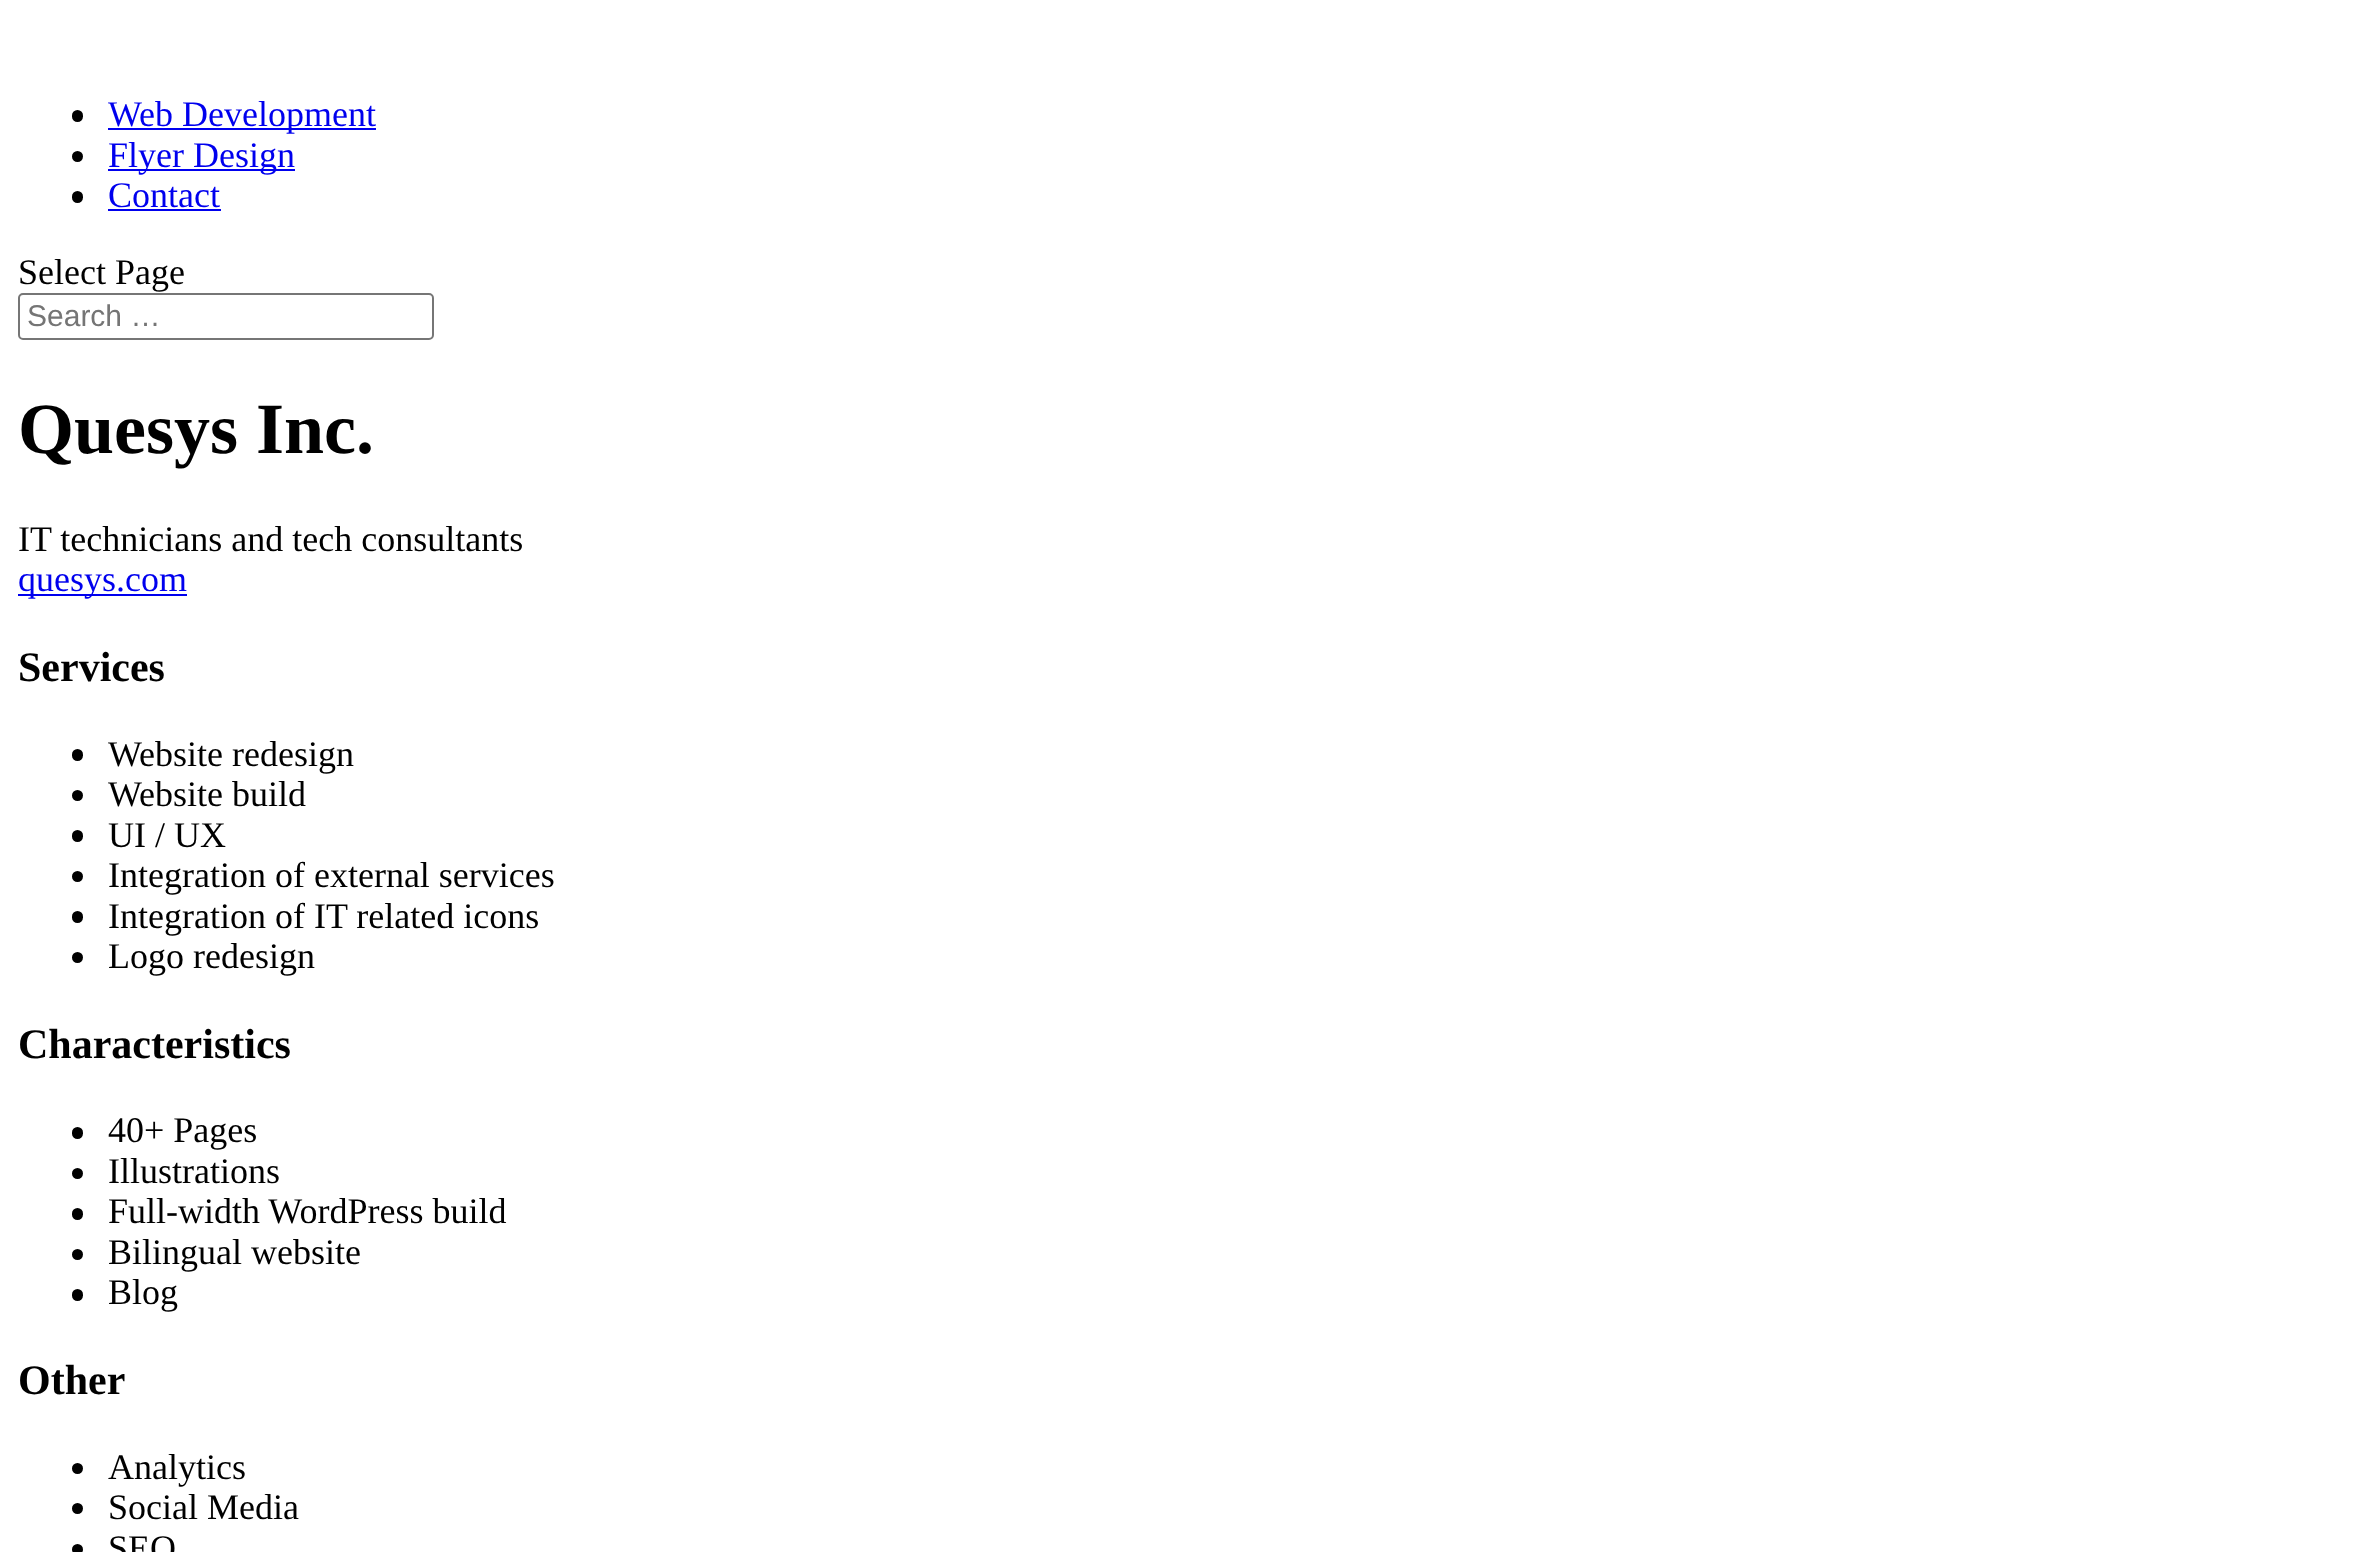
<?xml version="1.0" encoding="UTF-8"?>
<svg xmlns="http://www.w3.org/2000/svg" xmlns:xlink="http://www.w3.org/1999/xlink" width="2366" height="1552">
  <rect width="100%" height="100%" fill="#ffffff" />
  <rect x="72" y="110" width="11" height="12" rx="5.5" fill="#000000" />
  <rect x="108" y="128" width="268" height="2" fill="#0000ee" />
  <circle cx="77.5" cy="156.5" r="5.5" fill="#000000" />
  <rect x="108" y="169" width="187" height="2" fill="#0000ee" />
  <rect x="72" y="191" width="11" height="12" rx="5.5" fill="#000000" />
  <rect x="108" y="209" width="113" height="2" fill="#0000ee" />
  <rect x="19" y="294" width="414" height="45" rx="4" fill="none" stroke="#767676" stroke-width="2" />
  <rect x="18" y="594" width="169" height="2" fill="#0000ee" />
  <rect x="72" y="749" width="11" height="12" rx="5.5" fill="#000000" />
  <circle cx="77.5" cy="795.5" r="5.5" fill="#000000" />
  <rect x="72" y="830" width="11" height="12" rx="5.5" fill="#000000" />
  <circle cx="77.5" cy="876.5" r="5.5" fill="#000000" />
  <rect x="72" y="911" width="11" height="12" rx="5.5" fill="#000000" />
  <circle cx="77.5" cy="957.5" r="5.5" fill="#000000" />
  <rect x="72" y="1127" width="11" height="12" rx="5.5" fill="#000000" />
  <circle cx="77.5" cy="1173.5" r="5.5" fill="#000000" />
  <rect x="72" y="1208" width="11" height="12" rx="5.5" fill="#000000" />
  <circle cx="77.5" cy="1254.5" r="5.5" fill="#000000" />
  <rect x="72" y="1289" width="11" height="12" rx="5.5" fill="#000000" />
  <circle cx="77.5" cy="1468.5" r="5.5" fill="#000000" />
  <circle cx="77.5" cy="1508.5" r="5.5" fill="#000000" />
  <circle cx="77.5" cy="1549.5" r="5.5" fill="#000000" />
  <text x="108" y="126" style="font-family: Liberation Serif; font-size: 36px; fill: #0000ee">Web Development</text>
  <text x="108" y="167" style="font-family: Liberation Serif; font-size: 36px; fill: #0000ee">Flyer Design</text>
  <text x="108" y="207" style="font-family: Liberation Serif; font-size: 36px; fill: #0000ee">Contact</text>
  <text x="18" y="284" style="font-family: Liberation Serif; font-size: 36px; fill: #000000">Select Page</text>
  <text x="27" y="326" style="font-family: Liberation Sans; font-size: 30px; fill: #757575">Search …</text>
  <text x="18" y="453" style="font-family: Liberation Serif; font-size: 72px; font-weight: bold; fill: #000000">Quesys Inc.</text>
  <text x="18" y="551" style="font-family: Liberation Serif; font-size: 36px; fill: #000000">IT technicians and tech consultants</text>
  <text x="18" y="591" style="font-family: Liberation Serif; font-size: 36px; fill: #0000ee">quesys.com</text>
  <text x="18" y="681" style="font-family: Liberation Serif; font-size: 42px; font-weight: bold; fill: #000000">Services</text>
  <text x="108" y="766" style="font-family: Liberation Serif; font-size: 36px; fill: #000000">Website redesign</text>
  <text x="108" y="806" style="font-family: Liberation Serif; font-size: 36px; fill: #000000">Website build</text>
  <text x="108" y="847" style="font-family: Liberation Serif; font-size: 36px; fill: #000000">UI / UX</text>
  <text x="108" y="887" style="font-family: Liberation Serif; font-size: 36px; fill: #000000">Integration of external services</text>
  <text x="108" y="928" style="font-family: Liberation Serif; font-size: 36px; fill: #000000">Integration of IT related icons</text>
  <text x="108" y="968" style="font-family: Liberation Serif; font-size: 36px; fill: #000000">Logo redesign</text>
  <text x="18" y="1058" style="font-family: Liberation Serif; font-size: 42px; font-weight: bold; fill: #000000">Characteristics</text>
  <text x="108" y="1142" style="font-family: Liberation Serif; font-size: 36px; fill: #000000">40+ Pages</text>
  <text x="108" y="1183" style="font-family: Liberation Serif; font-size: 36px; fill: #000000">Illustrations</text>
  <text x="108" y="1223" style="font-family: Liberation Serif; font-size: 36px; fill: #000000">Full-width WordPress build</text>
  <text x="108" y="1264" style="font-family: Liberation Serif; font-size: 36px; fill: #000000">Bilingual website</text>
  <text x="108" y="1304" style="font-family: Liberation Serif; font-size: 36px; fill: #000000">Blog</text>
  <text x="18" y="1394" style="font-family: Liberation Serif; font-size: 42px; font-weight: bold; fill: #000000">Other</text>
  <text x="108" y="1479" style="font-family: Liberation Serif; font-size: 36px; fill: #000000">Analytics</text>
  <text x="108" y="1519" style="font-family: Liberation Serif; font-size: 36px; fill: #000000">Social Media</text>
  <text x="108" y="1560" style="font-family: Liberation Serif; font-size: 36px; fill: #000000">SEO</text>
</svg>
